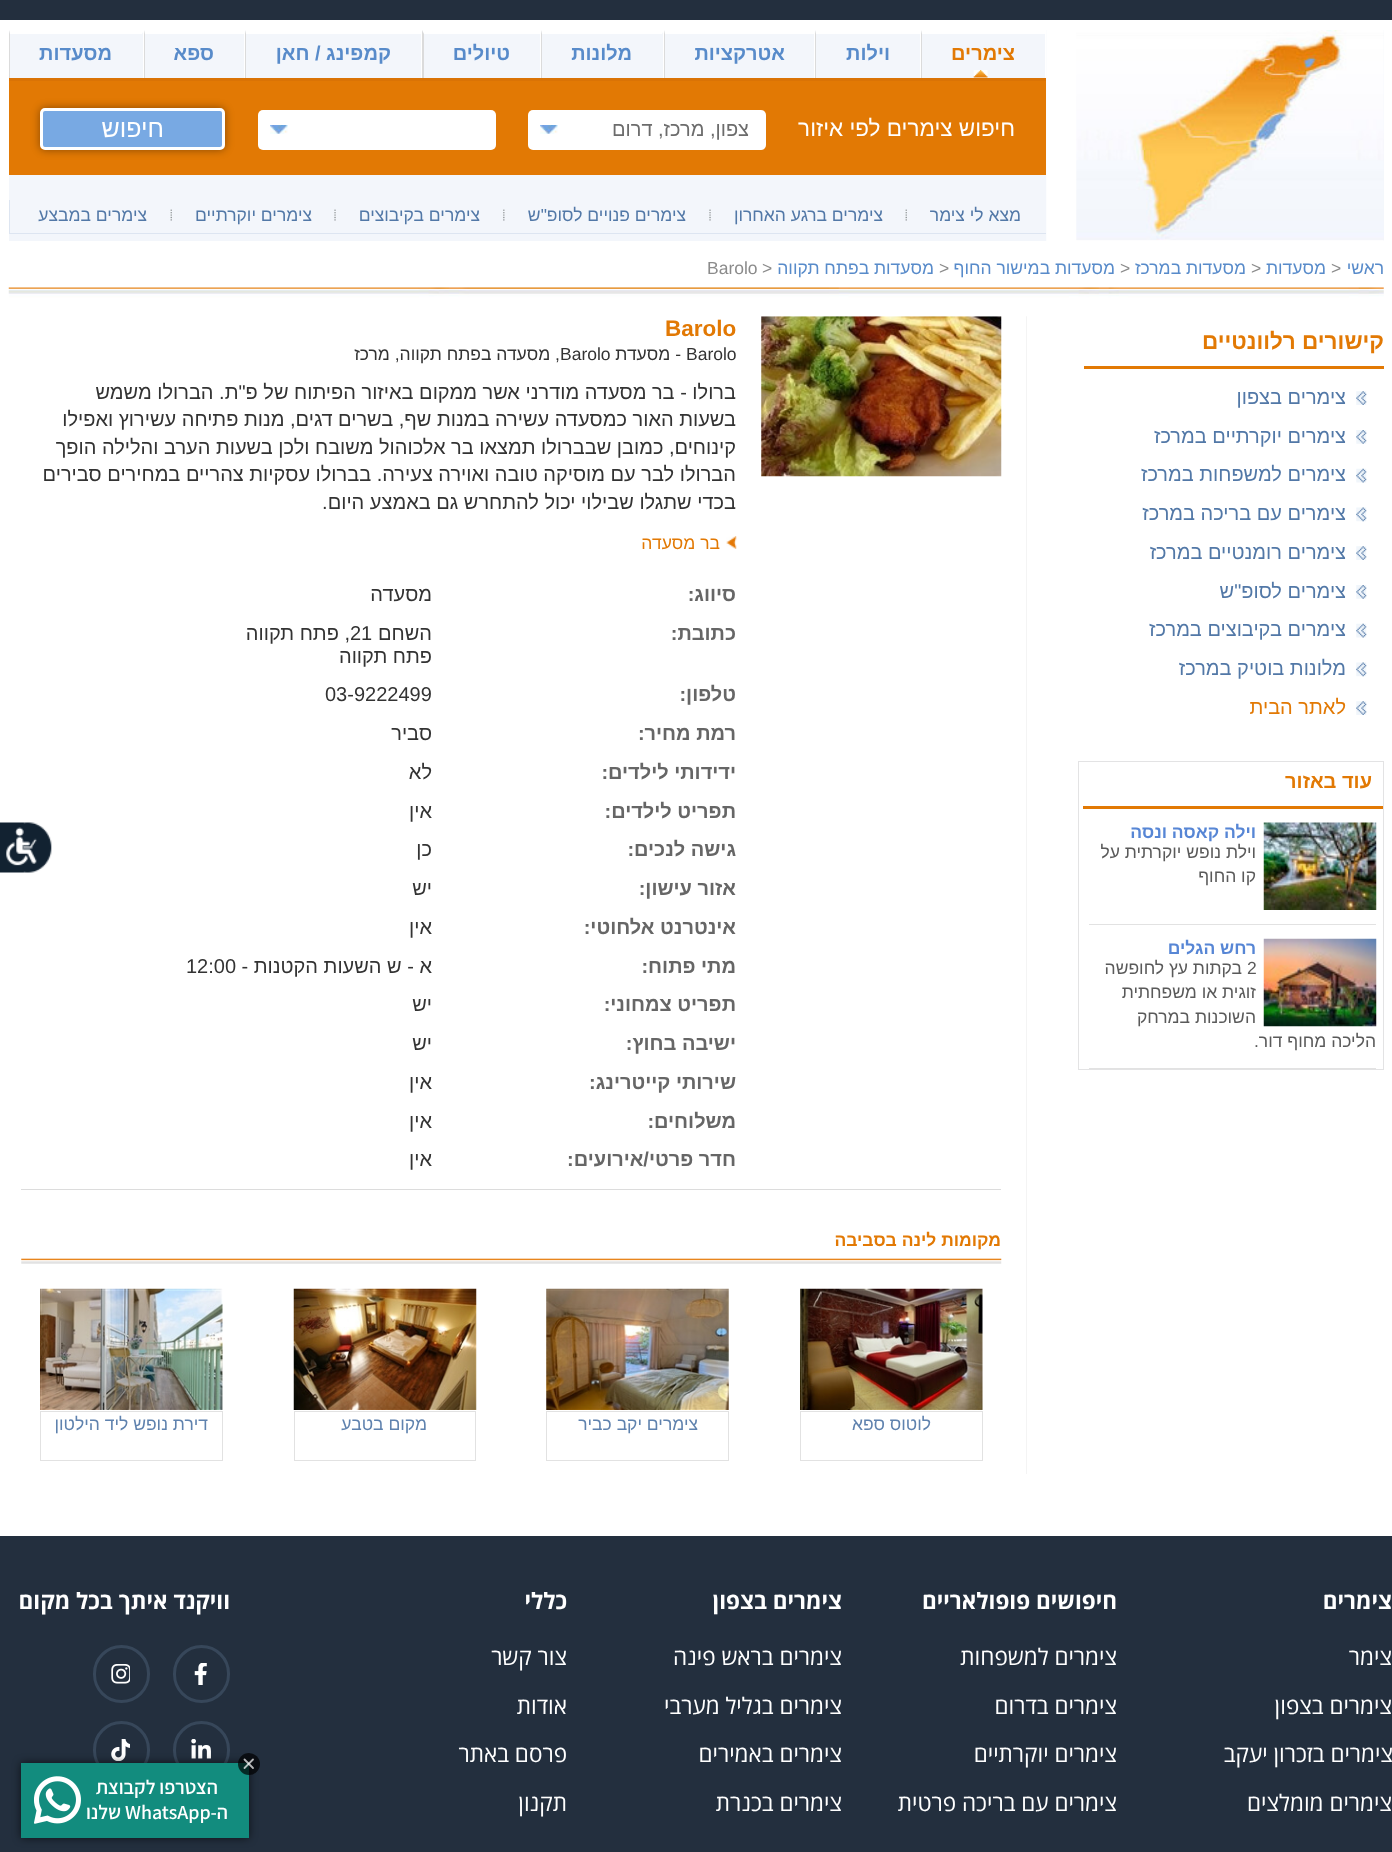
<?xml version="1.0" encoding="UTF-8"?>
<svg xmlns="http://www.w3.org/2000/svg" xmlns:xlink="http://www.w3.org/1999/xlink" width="1392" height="1852">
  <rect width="100%" height="100%" fill="#ffffff" />
  <rect width="1392" height="20" fill="#232f3e" />
  <rect x="9" y="30" width="1375" height="211" fill="#f3f6fb" />
  <image x="1046" y="30" width="338" height="211" xlink:href="image1.png" />
  <rect x="9" y="78" width="1037" height="3" fill="#da7305" />
  <image x="973" y="70" width="15" height="8" xlink:href="image2.png" />
  <path d="M 921 30 h 125 l -1 4 h -123 z" fill="#ffffff" />
  <rect x="1045" y="30" width="1" height="48" fill="#ffffff" />
  <path d="M 921 78 v -48 l 1 4 v 44 z" fill="#dbdbdb" />
  <path d="M 815 30 h 106 l -1 4 h -104 z" fill="#ffffff" />
  <rect x="920" y="30" width="1" height="48" fill="#ffffff" />
  <path d="M 815 78 v -48 l 1 4 v 44 z" fill="#dbdbdb" />
  <path d="M 664 30 h 151 l -1 4 h -149 z" fill="#ffffff" />
  <rect x="814" y="30" width="1" height="48" fill="#ffffff" />
  <path d="M 664 78 v -48 l 1 4 v 44 z" fill="#dbdbdb" />
  <path d="M 541 30 h 123 l -2 4 h -120 z" fill="#ffffff" />
  <rect x="663" y="30" width="1" height="48" fill="#ffffff" />
  <path d="M 541 78 v -48 l 1 4 v 44 z" fill="#dbdbdb" />
  <path d="M 422 30 h 119 l -1 4 h -116 z" fill="#ffffff" />
  <rect x="540" y="30" width="1" height="48" fill="#ffffff" />
  <path d="M 422 78 v -48 l 2 4 v 44 z" fill="#dbdbdb" />
  <path d="M 245 30 h 177 l -1 4 h -175 z" fill="#ffffff" />
  <rect x="421" y="30" width="1" height="48" fill="#ffffff" />
  <path d="M 245 78 v -48 l 1 4 v 44 z" fill="#dbdbdb" />
  <path d="M 144 30 h 101 l -1 4 h -99 z" fill="#ffffff" />
  <rect x="244" y="30" width="1" height="48" fill="#ffffff" />
  <path d="M 144 78 v -48 l 1 4 v 44 z" fill="#dbdbdb" />
  <path d="M 9 30 h 135 l -2 4 h -132 z" fill="#ffffff" />
  <rect x="143" y="30" width="1" height="48" fill="#ffffff" />
  <path d="M 9 78 v -48 l 1 4 v 44 z" fill="#dbdbdb" />
  <rect x="9" y="81" width="1037" height="94" fill="#e27904" />
  <rect x="528" y="110" width="238" height="40" rx="5" fill="#ffffff" />
  <image x="540" y="125" width="18" height="9" xlink:href="image3.png" />
  <rect x="258" y="110" width="238" height="40" rx="5" fill="#ffffff" />
  <image x="270" y="125" width="18" height="9" xlink:href="image3.png" />
  <rect x="40" y="108" width="185" height="42" rx="5" fill="#000000" fill-opacity="0.4" filter="blur(4px)" />
  <rect x="41.5" y="109.5" width="182" height="39" rx="3.5" fill="#78a9e3" stroke="#ffffff" stroke-width="3" />
  <rect x="9" y="233" width="1037" height="1" fill="#dde5f1" />
  <rect x="9" y="200" width="1" height="34" fill="#dde5f1" />
  <image x="905" y="209" width="2" height="12" xlink:href="image4.png" />
  <image x="709" y="209" width="2" height="12" xlink:href="image5.png" />
  <image x="503" y="209" width="2" height="12" xlink:href="image6.png" />
  <image x="334" y="209" width="2" height="12" xlink:href="image5.png" />
  <image x="170" y="209" width="2" height="12" xlink:href="image4.png" />
  <rect x="1026" y="316" width="1" height="1158" fill="#f4f4f4" />
  <image x="761" y="316" width="241" height="161" xlink:href="image14.png" />
  <image x="8" y="287" width="1376" height="30" xlink:href="image7.png" />
  <rect x="1084" y="366" width="300" height="3" fill="#e27904" />
  <image x="1356" y="391" width="11" height="14" xlink:href="image8.png" />
  <image x="1356" y="430" width="11" height="14" xlink:href="image9.png" />
  <image x="1356" y="468" width="11" height="15" xlink:href="image10.png" />
  <image x="1356" y="507" width="11" height="15" xlink:href="image11.png" />
  <image x="1356" y="546" width="11" height="14" xlink:href="image8.png" />
  <image x="1356" y="585" width="11" height="14" xlink:href="image9.png" />
  <image x="1356" y="623" width="11" height="15" xlink:href="image10.png" />
  <image x="1356" y="662" width="11" height="15" xlink:href="image11.png" />
  <image x="1356" y="701" width="11" height="14" xlink:href="image8.png" />
  <rect x="1078.5" y="761.5" width="305" height="308" fill="none" stroke="#e3e3e4" />
  <rect x="1083" y="806" width="300" height="3" fill="#e27904" />
  <rect x="1089" y="924" width="287" height="1" fill="#e2e2e2" />
  <image x="1263" y="822" width="114" height="88" xlink:href="image12.png" />
  <rect x="1089" y="1068" width="287" height="1" fill="#e2e2e2" />
  <image x="1263" y="938" width="114" height="89" xlink:href="image13.png" />
  <image x="726" y="536" width="11" height="13" xlink:href="image15.png" />
  <rect x="21" y="1189" width="980" height="1" fill="#dcdcdc" />
  <image x="21" y="1258" width="981" height="6" xlink:href="image16.png" />
  <image x="800" y="1288" width="183" height="122" xlink:href="image17.png" />
  <rect x="800.5" y="1411.5" width="182" height="49" fill="none" stroke="#e2e2e2" />
  <image x="546" y="1288" width="183" height="122" xlink:href="image18.png" />
  <rect x="546.5" y="1411.5" width="182" height="49" fill="none" stroke="#e2e2e2" />
  <image x="293" y="1288" width="184" height="122" xlink:href="image19.png" />
  <rect x="294.5" y="1411.5" width="181" height="49" fill="none" stroke="#e2e2e2" />
  <image x="40" y="1288" width="183" height="122" xlink:href="image20.png" />
  <rect x="40.5" y="1411.5" width="182" height="49" fill="none" stroke="#e2e2e2" />
  <rect y="1536" width="1392" height="316" fill="#232f3e" />
  <rect x="174.5" y="1646.5" width="54" height="55" rx="27" fill="none" stroke="#37475a" stroke-width="3" />
  <image x="194" y="1663" width="13" height="22" xlink:href="image21.png" />
  <rect x="94.5" y="1646.5" width="54" height="55" rx="27" fill="none" stroke="#37475a" stroke-width="3" />
  <image x="111" y="1664" width="19" height="20" xlink:href="image22.png" />
  <rect x="174.5" y="1722.5" width="54" height="55" rx="27" fill="none" stroke="#37475a" stroke-width="3" />
  <image x="191" y="1739" width="20" height="20" xlink:href="image23.png" />
  <rect x="94.5" y="1722.5" width="54" height="55" rx="27" fill="none" stroke="#37475a" stroke-width="3" />
  <image x="111" y="1739" width="19" height="22" xlink:href="image24.png" />
  <image x="0" y="822" width="52" height="51" xlink:href="image25.png" />
  <rect x="21" y="1763" width="228" height="75" fill="#000000" fill-opacity="0.62" filter="blur(4px)" />
  <rect x="21" y="1763" width="228" height="75" fill="#128c7e" />
  <image x="34" y="1776" width="47" height="48" xlink:href="image26.png" />
  <circle cx="249" cy="1764" r="11" fill="#000000" fill-opacity="0.7" />
  <path d="M 253 1759.5 l -8.5 8.5" fill="none" stroke="#ffffff" stroke-opacity="0.7" stroke-width="1.8" stroke-linecap="round" stroke-linejoin="round" />
  <path d="M 244.5 1759.5 l 8.5 8.5" fill="none" stroke="#ffffff" stroke-opacity="0.7" stroke-width="1.8" stroke-linecap="round" stroke-linejoin="round" />
  <text x="1015" y="60" style="font-family: Liberation Sans; font-size: 20px; font-weight: bold; direction: rtl; fill: #e27904">צימרים</text>
  <text x="890" y="60" style="font-family: Liberation Sans; font-size: 20px; font-weight: bold; direction: rtl; fill: #588bca">וילות</text>
  <text x="785" y="60" style="font-family: Liberation Sans; font-size: 20px; font-weight: bold; direction: rtl; fill: #588bca">אטרקציות</text>
  <text x="632" y="60" style="font-family: Liberation Sans; font-size: 20px; font-weight: bold; direction: rtl; fill: #588bca">מלונות</text>
  <text x="510" y="60" style="font-family: Liberation Sans; font-size: 20px; font-weight: bold; direction: rtl; fill: #588bca">טיולים</text>
  <text x="391" y="60" style="font-family: Liberation Sans; font-size: 20px; font-weight: bold; direction: rtl; fill: #588bca">קמפינג / חאן</text>
  <text x="214" y="60" style="font-family: Liberation Sans; font-size: 20px; font-weight: bold; direction: rtl; fill: #588bca">ספא</text>
  <text x="112" y="60" style="font-family: Liberation Sans; font-size: 20px; font-weight: bold; direction: rtl; fill: #588bca">מסעדות</text>
  <text x="1015" y="136" style="font-family: Liberation Sans; font-size: 22.5px; direction: rtl; fill: #ffffff">חיפוש צימרים לפי איזור</text>
  <text x="749" y="136" style="font-family: Liberation Sans; font-size: 20px; direction: rtl; fill: #6c6c6c">צפון, מרכז, דרום</text>
  <text x="164" y="137" style="font-family: Liberation Sans; font-size: 25px; direction: rtl; fill: #ffffff">חיפוש</text>
  <text x="1021" y="221" style="font-family: Liberation Sans; font-size: 17.5px; direction: rtl; fill: #5278a7">מצא לי צימר</text>
  <text x="883" y="221" style="font-family: Liberation Sans; font-size: 17.5px; direction: rtl; fill: #5278a7">צימרים ברגע האחרון</text>
  <text x="686" y="221" style="font-family: Liberation Sans; font-size: 17.5px; direction: rtl; fill: #5278a7">צימרים פנויים לסופ"ש</text>
  <text x="480" y="221" style="font-family: Liberation Sans; font-size: 17.5px; direction: rtl; fill: #5278a7">צימרים בקיבוצים</text>
  <text x="312" y="221" style="font-family: Liberation Sans; font-size: 17.5px; direction: rtl; fill: #5278a7">צימרים יוקרתיים</text>
  <text x="147" y="221" style="font-family: Liberation Sans; font-size: 17.5px; direction: rtl; fill: #5278a7">צימרים במבצע</text>
  <text x="1384" y="274" style="font-family: Liberation Sans; font-size: 17.5px; direction: rtl; fill: #588bca">ראשי</text>
  <text x="1331" y="274" style="font-family: Liberation Sans; font-size: 17.5px; fill: #8b8b8b">&gt;</text>
  <text x="1326" y="274" style="font-family: Liberation Sans; font-size: 17.5px; direction: rtl; fill: #588bca">מסעדות</text>
  <text x="1251" y="274" style="font-family: Liberation Sans; font-size: 17.5px; fill: #8b8b8b">&gt;</text>
  <text x="1246" y="274" style="font-family: Liberation Sans; font-size: 17.5px; direction: rtl; fill: #588bca">מסעדות במרכז</text>
  <text x="1120" y="274" style="font-family: Liberation Sans; font-size: 17.5px; fill: #8b8b8b">&gt;</text>
  <text x="1115" y="274" style="font-family: Liberation Sans; font-size: 17.5px; direction: rtl; fill: #588bca">מסעדות במישור החוף</text>
  <text x="939" y="274" style="font-family: Liberation Sans; font-size: 17.5px; fill: #8b8b8b">&gt;</text>
  <text x="934" y="274" style="font-family: Liberation Sans; font-size: 17.5px; direction: rtl; fill: #588bca">מסעדות בפתח תקווה</text>
  <text x="762" y="274" style="font-family: Liberation Sans; font-size: 17.5px; fill: #8b8b8b">&gt;</text>
  <text x="707" y="274" style="font-family: Liberation Sans; font-size: 17.5px; fill: #8b8b8b">Barolo</text>
  <text x="1384" y="349" style="font-family: Liberation Sans; font-size: 22.5px; font-weight: bold; direction: rtl; fill: #e27904">קישורים רלוונטיים</text>
  <text x="1346" y="404" style="font-family: Liberation Sans; font-size: 20px; direction: rtl; fill: #5278a7">צימרים בצפון</text>
  <text x="1346" y="443" style="font-family: Liberation Sans; font-size: 20px; direction: rtl; fill: #5278a7">צימרים יוקרתיים במרכז</text>
  <text x="1346" y="481" style="font-family: Liberation Sans; font-size: 20px; direction: rtl; fill: #5278a7">צימרים למשפחות במרכז</text>
  <text x="1346" y="520" style="font-family: Liberation Sans; font-size: 20px; direction: rtl; fill: #5278a7">צימרים עם בריכה במרכז</text>
  <text x="1346" y="559" style="font-family: Liberation Sans; font-size: 20px; direction: rtl; fill: #5278a7">צימרים רומנטיים במרכז</text>
  <text x="1346" y="598" style="font-family: Liberation Sans; font-size: 20px; direction: rtl; fill: #5278a7">צימרים לסופ"ש</text>
  <text x="1346" y="636" style="font-family: Liberation Sans; font-size: 20px; direction: rtl; fill: #5278a7">צימרים בקיבוצים במרכז</text>
  <text x="1346" y="675" style="font-family: Liberation Sans; font-size: 20px; direction: rtl; fill: #5278a7">מלונות בוטיק במרכז</text>
  <text x="1346" y="714" style="font-family: Liberation Sans; font-size: 20px; direction: rtl; fill: #e27904">לאתר הבית</text>
  <text x="1372" y="788" style="font-family: Liberation Sans; font-size: 20px; font-weight: bold; direction: rtl; fill: #e27904">עוד באזור</text>
  <text x="1256" y="838" style="font-family: Liberation Sans; font-size: 17.5px; font-weight: bold; direction: rtl; fill: #5786d5">וילה קאסה ונסה</text>
  <text x="1256" y="858" style="font-family: Liberation Sans; font-size: 17.5px; direction: rtl; fill: #5a5a5a">וילת נופש יוקרתית על</text>
  <text x="1256" y="882" style="font-family: Liberation Sans; font-size: 17.5px; direction: rtl; fill: #5a5a5a">קו החוף</text>
  <text x="1256" y="954" style="font-family: Liberation Sans; font-size: 17.5px; font-weight: bold; direction: rtl; fill: #5786d5">רחש הגלים</text>
  <text x="1247" y="974" style="font-family: Liberation Sans; font-size: 17.5px; fill: #5a5a5a">2</text>
  <text x="1242" y="974" style="font-family: Liberation Sans; font-size: 17.5px; direction: rtl; fill: #5a5a5a">בקתות עץ לחופשה</text>
  <text x="1256" y="998" style="font-family: Liberation Sans; font-size: 17.5px; direction: rtl; fill: #5a5a5a">זוגית או משפחתית</text>
  <text x="1256" y="1023" style="font-family: Liberation Sans; font-size: 17.5px; direction: rtl; fill: #5a5a5a">השוכנות במרחק</text>
  <text x="1376" y="1047" style="font-family: Liberation Sans; font-size: 17.5px; direction: rtl; fill: #5a5a5a">הליכה מחוף דור.</text>
  <text x="665" y="336" style="font-family: Liberation Sans; font-size: 22.5px; font-weight: bold; fill: #e27904">Barolo</text>
  <text x="686" y="360" style="font-family: Liberation Sans; font-size: 17.5px; fill: #333333">Barolo</text>
  <text x="681" y="360" style="font-family: Liberation Sans; font-size: 17.5px; direction: rtl; fill: #333333">- מסעדת</text>
  <text x="560" y="360" style="font-family: Liberation Sans; font-size: 17.5px; fill: #333333">Barolo</text>
  <text x="560" y="360" style="font-family: Liberation Sans; font-size: 17.5px; direction: rtl; fill: #333333">, מסעדה בפתח תקווה, מרכז</text>
  <text x="736" y="399" style="font-family: Liberation Sans; font-size: 20px; direction: rtl; fill: #333333">ברולו - בר מסעדה מודרני אשר ממקום באיזור הפיתוח של פ"ת. הברולו משמש</text>
  <text x="736" y="426" style="font-family: Liberation Sans; font-size: 20px; direction: rtl; fill: #333333">בשעות האור כמסעדה עשירה במנות שף, בשרים דגים, מנות פתיחה עשירוץ ואפילו</text>
  <text x="736" y="454" style="font-family: Liberation Sans; font-size: 20px; direction: rtl; fill: #333333">קינוחים, כמובן שבברולו תמצאו בר אלכוהול משובח ולכן בשעות הערב והלילה הופך</text>
  <text x="736" y="481" style="font-family: Liberation Sans; font-size: 20px; direction: rtl; fill: #333333">הברולו לבר עם מוסיקה טובה ואוירה צעירה. בברולו עסקיות צהריים במחירים סבירים</text>
  <text x="736" y="509" style="font-family: Liberation Sans; font-size: 20px; direction: rtl; fill: #333333">בכדי שתגלו שבילוי יכול להתחרש גם באמצע היום.</text>
  <text x="720" y="549" style="font-family: Liberation Sans; font-size: 17.5px; direction: rtl; fill: #e27904">בר מסעדה</text>
  <text x="736" y="601" style="font-family: Liberation Sans; font-size: 20px; font-weight: bold; direction: rtl; fill: #666666">סיווג:</text>
  <text x="432" y="601" style="font-family: Liberation Sans; font-size: 20px; direction: rtl; fill: #333333">מסעדה</text>
  <text x="736" y="640" style="font-family: Liberation Sans; font-size: 20px; font-weight: bold; direction: rtl; fill: #666666">כתובת:</text>
  <text x="432" y="640" style="font-family: Liberation Sans; font-size: 20px; direction: rtl; fill: #333333">השחם</text>
  <text x="350" y="640" style="font-family: Liberation Sans; font-size: 20px; fill: #333333">21</text>
  <text x="350" y="640" style="font-family: Liberation Sans; font-size: 20px; direction: rtl; fill: #333333">, פתח תקווה</text>
  <text x="432" y="663" style="font-family: Liberation Sans; font-size: 20px; direction: rtl; fill: #333333">פתח תקווה</text>
  <text x="736" y="701" style="font-family: Liberation Sans; font-size: 20px; font-weight: bold; direction: rtl; fill: #666666">טלפון:</text>
  <text x="325" y="701" style="font-family: Liberation Sans; font-size: 20px; fill: #333333">03-9222499</text>
  <text x="736" y="740" style="font-family: Liberation Sans; font-size: 20px; font-weight: bold; direction: rtl; fill: #666666">רמת מחיר:</text>
  <text x="432" y="740" style="font-family: Liberation Sans; font-size: 20px; direction: rtl; fill: #333333">סביר</text>
  <text x="736" y="779" style="font-family: Liberation Sans; font-size: 20px; font-weight: bold; direction: rtl; fill: #666666">ידידותי לילדים:</text>
  <text x="432" y="779" style="font-family: Liberation Sans; font-size: 20px; direction: rtl; fill: #333333">לא</text>
  <text x="736" y="818" style="font-family: Liberation Sans; font-size: 20px; font-weight: bold; direction: rtl; fill: #666666">תפריט לילדים:</text>
  <text x="432" y="818" style="font-family: Liberation Sans; font-size: 20px; direction: rtl; fill: #333333">אין</text>
  <text x="736" y="856" style="font-family: Liberation Sans; font-size: 20px; font-weight: bold; direction: rtl; fill: #666666">גישה לנכים:</text>
  <text x="432" y="856" style="font-family: Liberation Sans; font-size: 20px; direction: rtl; fill: #333333">כן</text>
  <text x="736" y="895" style="font-family: Liberation Sans; font-size: 20px; font-weight: bold; direction: rtl; fill: #666666">אזור עישון:</text>
  <text x="432" y="895" style="font-family: Liberation Sans; font-size: 20px; direction: rtl; fill: #333333">יש</text>
  <text x="736" y="934" style="font-family: Liberation Sans; font-size: 20px; font-weight: bold; direction: rtl; fill: #666666">אינטרנט אלחוטי:</text>
  <text x="432" y="934" style="font-family: Liberation Sans; font-size: 20px; direction: rtl; fill: #333333">אין</text>
  <text x="736" y="973" style="font-family: Liberation Sans; font-size: 20px; font-weight: bold; direction: rtl; fill: #666666">מתי פתוח:</text>
  <text x="432" y="973" style="font-family: Liberation Sans; font-size: 20px; direction: rtl; fill: #333333">א - ש השעות הקטנות -</text>
  <text x="186" y="973" style="font-family: Liberation Sans; font-size: 20px; fill: #333333">12:00</text>
  <text x="736" y="1011" style="font-family: Liberation Sans; font-size: 20px; font-weight: bold; direction: rtl; fill: #666666">תפריט צמחוני:</text>
  <text x="432" y="1011" style="font-family: Liberation Sans; font-size: 20px; direction: rtl; fill: #333333">יש</text>
  <text x="736" y="1050" style="font-family: Liberation Sans; font-size: 20px; font-weight: bold; direction: rtl; fill: #666666">ישיבה בחוץ:</text>
  <text x="432" y="1050" style="font-family: Liberation Sans; font-size: 20px; direction: rtl; fill: #333333">יש</text>
  <text x="736" y="1089" style="font-family: Liberation Sans; font-size: 20px; font-weight: bold; direction: rtl; fill: #666666">שירותי קייטרינג:</text>
  <text x="432" y="1089" style="font-family: Liberation Sans; font-size: 20px; direction: rtl; fill: #333333">אין</text>
  <text x="736" y="1128" style="font-family: Liberation Sans; font-size: 20px; font-weight: bold; direction: rtl; fill: #666666">משלוחים:</text>
  <text x="432" y="1128" style="font-family: Liberation Sans; font-size: 20px; direction: rtl; fill: #333333">אין</text>
  <text x="736" y="1166" style="font-family: Liberation Sans; font-size: 20px; font-weight: bold; direction: rtl; fill: #666666">חדר פרטי/אירועים:</text>
  <text x="432" y="1166" style="font-family: Liberation Sans; font-size: 20px; direction: rtl; fill: #333333">אין</text>
  <text x="1001" y="1246" style="font-family: Liberation Sans; font-size: 17.5px; font-weight: bold; direction: rtl; fill: #e27904">מקומות לינה בסביבה</text>
  <text x="931" y="1430" style="font-family: Liberation Sans; font-size: 17.5px; direction: rtl; fill: #5f82ae">לוטוס ספא</text>
  <text x="698" y="1430" style="font-family: Liberation Sans; font-size: 17.5px; direction: rtl; fill: #5f82ae">צימרים יקב כביר</text>
  <text x="427" y="1430" style="font-family: Liberation Sans; font-size: 17.5px; direction: rtl; fill: #5f82ae">מקום בטבע</text>
  <text x="208" y="1430" style="font-family: Liberation Sans; font-size: 17.5px; direction: rtl; fill: #5f82ae">דירת נופש ליד הילטון</text>
  <text x="1392" y="1609" style="font-family: Open Sans; font-size: 22.5px; font-weight: bold; direction: rtl; fill: #ffffff">צימרים</text>
  <text x="1392" y="1665" style="font-family: Open Sans; font-size: 22.5px; direction: rtl; fill: #ffffff">צימר</text>
  <text x="1392" y="1714" style="font-family: Open Sans; font-size: 22.5px; direction: rtl; fill: #ffffff">צימרים בצפון</text>
  <text x="1393" y="1762" style="font-family: Open Sans; font-size: 22.5px; direction: rtl; fill: #ffffff">צימרים בזכרון יעקב</text>
  <text x="1392" y="1811" style="font-family: Open Sans; font-size: 22.5px; direction: rtl; fill: #ffffff">צימרים מומלצים</text>
  <text x="1117" y="1609" style="font-family: Open Sans; font-size: 22.5px; font-weight: bold; direction: rtl; fill: #ffffff">חיפושים פופולאריים</text>
  <text x="1117" y="1665" style="font-family: Open Sans; font-size: 22.5px; direction: rtl; fill: #ffffff">צימרים למשפחות</text>
  <text x="1117" y="1714" style="font-family: Open Sans; font-size: 22.5px; direction: rtl; fill: #ffffff">צימרים בדרום</text>
  <text x="1117" y="1762" style="font-family: Open Sans; font-size: 22.5px; direction: rtl; fill: #ffffff">צימרים יוקרתיים</text>
  <text x="1117" y="1811" style="font-family: Open Sans; font-size: 22.5px; direction: rtl; fill: #ffffff">צימרים עם בריכה פרטית</text>
  <text x="842" y="1609" style="font-family: Open Sans; font-size: 22.5px; font-weight: bold; direction: rtl; fill: #ffffff">צימרים בצפון</text>
  <text x="842" y="1665" style="font-family: Open Sans; font-size: 22.5px; direction: rtl; fill: #ffffff">צימרים בראש פינה</text>
  <text x="842" y="1714" style="font-family: Open Sans; font-size: 22.5px; direction: rtl; fill: #ffffff">צימרים בגליל מערבי</text>
  <text x="842" y="1762" style="font-family: Open Sans; font-size: 22.5px; direction: rtl; fill: #ffffff">צימרים באמירים</text>
  <text x="842" y="1811" style="font-family: Open Sans; font-size: 22.5px; direction: rtl; fill: #ffffff">צימרים בכנרת</text>
  <text x="567" y="1609" style="font-family: Open Sans; font-size: 22.5px; font-weight: bold; direction: rtl; fill: #ffffff">כללי</text>
  <text x="567" y="1665" style="font-family: Open Sans; font-size: 22.5px; direction: rtl; fill: #ffffff">צור קשר</text>
  <text x="567" y="1714" style="font-family: Open Sans; font-size: 22.5px; direction: rtl; fill: #ffffff">אודות</text>
  <text x="567" y="1762" style="font-family: Open Sans; font-size: 22.5px; direction: rtl; fill: #ffffff">פרסם באתר</text>
  <text x="567" y="1811" style="font-family: Open Sans; font-size: 22.5px; direction: rtl; fill: #ffffff">תקנון</text>
  <text x="230" y="1609" style="font-family: Open Sans; font-size: 22.5px; font-weight: bold; direction: rtl; fill: #ffffff">וויקנד איתך בכל מקום</text>
  <text x="218" y="1794" style="font-family: Assistant; font-size: 20px; font-weight: 600; direction: rtl; fill: #ffffff">הצטרפו לקבוצת</text>
  <text x="228" y="1819" style="font-family: Assistant; font-size: 20px; font-weight: 600; direction: rtl; fill: #ffffff">ה-</text>
  <text x="125" y="1819" style="font-family: Assistant; font-size: 20px; font-weight: 600; fill: #ffffff">WhatsApp</text>
  <text x="121" y="1819" style="font-family: Assistant; font-size: 20px; font-weight: 600; direction: rtl; fill: #ffffff">שלנו</text>
</svg>
